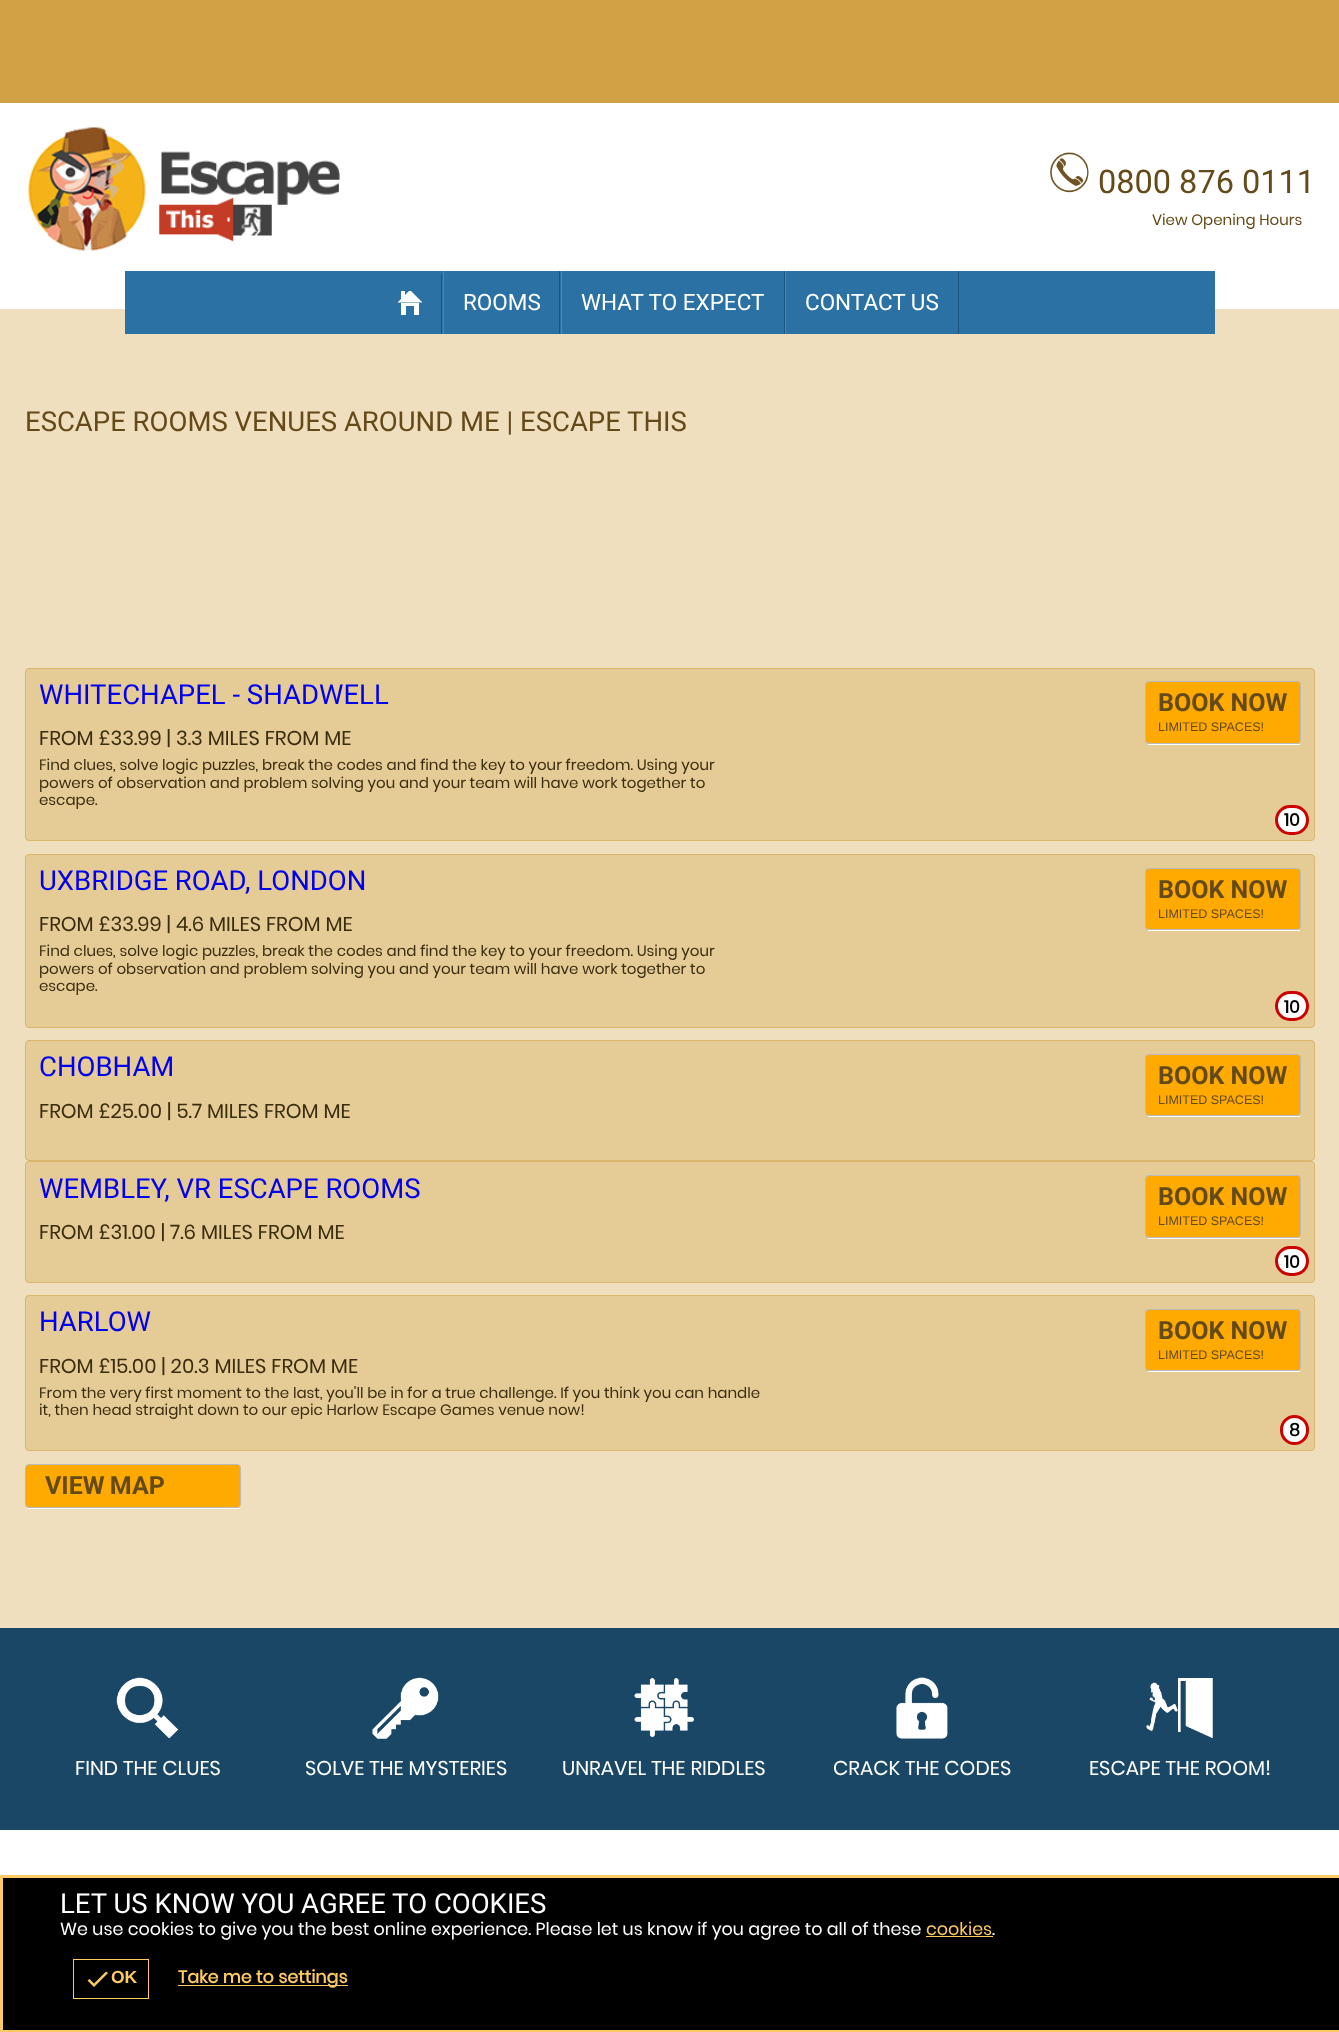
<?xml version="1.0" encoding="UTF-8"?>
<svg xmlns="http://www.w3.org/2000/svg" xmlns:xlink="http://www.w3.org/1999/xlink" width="1339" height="2032">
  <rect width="100%" height="100%" fill="#efdfbf" />
  <rect width="1339" height="103" fill="#d0a245" />
  <rect y="103" width="1339" height="206" fill="#ffffff" />
  <image x="27" y="127" width="313" height="125" xlink:href="image1.png" />
  <image x="1050" y="152" width="39" height="41" xlink:href="image2.png" />
  <rect x="125" y="271" width="1090" height="63" fill="#2b71a4" />
  <rect x="441" y="274" width="1" height="60" fill="#20557b" />
  <path d="M 422.5 302.5 h -25 l 11.5 -11.5 h 2 z" fill="#ffffff" />
  <rect x="401" y="291" width="4" height="8" fill="#ffffff" />
  <rect x="401" y="303" width="18" height="12" fill="#ffffff" />
  <rect x="406" y="306" width="8" height="10" fill="#2b71a4" />
  <rect x="559" y="271" width="1" height="63" fill="#20557b" />
  <rect x="443" y="271" width="1" height="63" fill="#378ccb" />
  <rect x="784" y="271" width="1" height="63" fill="#20557b" />
  <rect x="561" y="271" width="1" height="63" fill="#378ccb" />
  <rect x="958" y="271" width="1" height="63" fill="#20557b" />
  <rect x="785" y="271" width="1" height="63" fill="#378ccb" />
  <rect x="25.5" y="668.5" width="1289" height="172" rx="3.5" fill="#e5cb96" stroke="#dbb66d" />
  <rect x="1148" y="744" width="152" height="1" fill="#ffffff" />
  <rect x="1145.5" y="681.5" width="155" height="62" rx="3.5" fill="#ffaa00" stroke="#bbbbbb" />
  <rect x="1276.5" y="806.5" width="31" height="27" rx="13.5" fill="#ffffff" stroke="#cc0000" stroke-width="3" />
  <rect x="25.5" y="854.5" width="1289" height="173" rx="3.5" fill="#e5cb96" stroke="#dbb66d" />
  <rect x="1148" y="930" width="152" height="1" fill="#ffffff" />
  <rect x="1145.5" y="868.5" width="155" height="61" rx="3.5" fill="#ffaa00" stroke="#bbbbbb" />
  <rect x="1276.5" y="992.5" width="31" height="27" rx="13.5" fill="#ffffff" stroke="#cc0000" stroke-width="3" />
  <rect x="25.5" y="1040.5" width="1289" height="120" rx="3.5" fill="#e5cb96" stroke="#dbb66d" />
  <rect x="1148" y="1116" width="152" height="1" fill="#ffffff" />
  <rect x="1145.5" y="1054.5" width="155" height="61" rx="3.5" fill="#ffaa00" stroke="#bbbbbb" />
  <rect x="25.5" y="1161.5" width="1289" height="121" rx="3.5" fill="#e5cb96" stroke="#dbb66d" />
  <rect x="1148" y="1238" width="152" height="1" fill="#ffffff" />
  <rect x="1145.5" y="1175.5" width="155" height="62" rx="3.5" fill="#ffaa00" stroke="#bbbbbb" />
  <rect x="1276.5" y="1247.5" width="31" height="27" rx="13.5" fill="#ffffff" stroke="#cc0000" stroke-width="3" />
  <rect x="25.5" y="1295.5" width="1289" height="155" rx="3.5" fill="#e5cb96" stroke="#dbb66d" />
  <rect x="1148" y="1371" width="152" height="1" fill="#ffffff" />
  <rect x="1145.5" y="1309.5" width="155" height="61" rx="3.5" fill="#ffaa00" stroke="#bbbbbb" />
  <rect x="1281.5" y="1416.5" width="26" height="27" rx="13" fill="#ffffff" stroke="#cc0000" stroke-width="3" />
  <rect x="28" y="1508" width="212" height="1" fill="#ffffff" />
  <rect x="25.5" y="1464.5" width="215" height="43" rx="3.5" fill="#ffaa00" stroke="#bbbbbb" />
  <rect y="1628" width="1339" height="202" fill="#1b4767" />
  <image x="116" y="1677" width="63" height="62" xlink:href="image3.png" />
  <image x="372" y="1677" width="67" height="62" xlink:href="image4.png" />
  <image x="634" y="1678" width="60" height="59" xlink:href="image5.png" />
  <image x="896" y="1677" width="52" height="62" xlink:href="image6.png" />
  <image x="1146" y="1678" width="67" height="60" xlink:href="image7.png" />
  <rect y="1830" width="1339" height="45" fill="#ffffff" />
  <rect x="1.5" y="1876.5" width="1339" height="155" fill="#000000" stroke="#feca64" stroke-width="3" />
  <rect x="926" y="1936" width="67" height="1" fill="#feca64" />
  <rect x="73.5" y="1959.5" width="75" height="39" fill="none" stroke="#feca64" />
  <path d="M 94 1983.5 l 12 -12 l 2 1.5 l -14 14 l -6.5 -6.5 l 2 -1.5 z" fill="#feca64" />
  <rect x="178" y="1985" width="170" height="1" fill="#feca64" />
  <text x="1098" y="193" style="font-family: Roboto; font-size: 32.5px; fill: #654a19">0800 876 0111</text>
  <text x="1152" y="225" style="font-family: Poppins; font-size: 15px; fill: #654a19">View Opening Hours</text>
  <text x="463" y="310" style="font-family: Roboto; font-size: 22.5px; fill: #ffffff">ROOMS</text>
  <text x="581" y="310" style="font-family: Roboto; font-size: 22.5px; fill: #ffffff">WHAT TO EXPECT</text>
  <text x="805" y="310" style="font-family: Roboto; font-size: 22.5px; fill: #ffffff">CONTACT US</text>
  <text x="25" y="431" style="font-family: Roboto; font-size: 27.5px; fill: #654a19">ESCAPE ROOMS VENUES AROUND ME | ESCAPE THIS</text>
  <text x="39" y="704" style="font-family: Roboto; font-size: 27.5px; fill: #0000ee">WHITECHAPEL - SHADWELL</text>
  <text x="1158" y="711" style="font-family: Roboto; font-size: 25px; font-weight: bold; fill: #654a19">BOOK NOW</text>
  <text x="1158" y="731" style="font-family: Liberation Sans; font-size: 12.5px; fill: #654a19">LIMITED SPACES!</text>
  <text x="39" y="745" style="font-family: Poppins; font-size: 20px; fill: #3a2c0f">FROM £33.99 | 3.3 MILES FROM ME</text>
  <text x="39" y="770" style="font-family: Poppins; font-size: 15px; fill: #3a2c0f">Find clues, solve logic puzzles, break the codes and find the key to your freedom. Using your</text>
  <text x="39" y="788" style="font-family: Poppins; font-size: 15px; fill: #3a2c0f">powers of observation and problem solving you and your team will have work together to</text>
  <text x="39" y="805" style="font-family: Poppins; font-size: 15px; fill: #3a2c0f">escape.</text>
  <text x="1284" y="826" style="font-family: Poppins; font-size: 17.5px; font-weight: bold; fill: #000000">10</text>
  <text x="39" y="890" style="font-family: Roboto; font-size: 27.5px; fill: #0000ee">UXBRIDGE ROAD, LONDON</text>
  <text x="1158" y="898" style="font-family: Roboto; font-size: 25px; font-weight: bold; fill: #654a19">BOOK NOW</text>
  <text x="1158" y="918" style="font-family: Liberation Sans; font-size: 12.5px; fill: #654a19">LIMITED SPACES!</text>
  <text x="39" y="931" style="font-family: Poppins; font-size: 20px; fill: #3a2c0f">FROM £33.99 | 4.6 MILES FROM ME</text>
  <text x="39" y="956" style="font-family: Poppins; font-size: 15px; fill: #3a2c0f">Find clues, solve logic puzzles, break the codes and find the key to your freedom. Using your</text>
  <text x="39" y="974" style="font-family: Poppins; font-size: 15px; fill: #3a2c0f">powers of observation and problem solving you and your team will have work together to</text>
  <text x="39" y="991" style="font-family: Poppins; font-size: 15px; fill: #3a2c0f">escape.</text>
  <text x="1284" y="1013" style="font-family: Poppins; font-size: 17.5px; font-weight: bold; fill: #000000">10</text>
  <text x="39" y="1076" style="font-family: Roboto; font-size: 27.5px; fill: #0000ee">CHOBHAM</text>
  <text x="1158" y="1084" style="font-family: Roboto; font-size: 25px; font-weight: bold; fill: #654a19">BOOK NOW</text>
  <text x="1158" y="1104" style="font-family: Liberation Sans; font-size: 12.5px; fill: #654a19">LIMITED SPACES!</text>
  <text x="39" y="1118" style="font-family: Poppins; font-size: 20px; fill: #3a2c0f">FROM £25.00 | 5.7 MILES FROM ME</text>
  <text x="39" y="1198" style="font-family: Roboto; font-size: 27.5px; fill: #0000ee">WEMBLEY, VR ESCAPE ROOMS</text>
  <text x="1158" y="1205" style="font-family: Roboto; font-size: 25px; font-weight: bold; fill: #654a19">BOOK NOW</text>
  <text x="1158" y="1225" style="font-family: Liberation Sans; font-size: 12.5px; fill: #654a19">LIMITED SPACES!</text>
  <text x="39" y="1239" style="font-family: Poppins; font-size: 20px; fill: #3a2c0f">FROM £31.00 | 7.6 MILES FROM ME</text>
  <text x="1284" y="1268" style="font-family: Poppins; font-size: 17.5px; font-weight: bold; fill: #000000">10</text>
  <text x="39" y="1331" style="font-family: Roboto; font-size: 27.5px; fill: #0000ee">HARLOW</text>
  <text x="1158" y="1339" style="font-family: Roboto; font-size: 25px; font-weight: bold; fill: #654a19">BOOK NOW</text>
  <text x="1158" y="1359" style="font-family: Liberation Sans; font-size: 12.5px; fill: #654a19">LIMITED SPACES!</text>
  <text x="39" y="1373" style="font-family: Poppins; font-size: 20px; fill: #3a2c0f">FROM £15.00 | 20.3 MILES FROM ME</text>
  <text x="39" y="1398" style="font-family: Poppins; font-size: 15px; fill: #3a2c0f">From the very first moment to the last, you'll be in for a true challenge. If you think you can handle</text>
  <text x="39" y="1415" style="font-family: Poppins; font-size: 15px; fill: #3a2c0f">it, then head straight down to our epic Harlow Escape Games venue now!</text>
  <text x="1289" y="1436" style="font-family: Poppins; font-size: 17.5px; font-weight: bold; fill: #000000">8</text>
  <text x="45" y="1494" word-spacing="-1" style="font-family: Roboto; font-size: 25px; font-weight: bold; fill: #654a19">VIEW MAP</text>
  <text x="75" y="1775" style="font-family: Poppins; font-size: 20px; fill: #ffffff">FIND THE CLUES</text>
  <text x="305" y="1775" style="font-family: Poppins; font-size: 20px; fill: #ffffff">SOLVE THE MYSTERIES</text>
  <text x="562" y="1775" style="font-family: Poppins; font-size: 20px; fill: #ffffff">UNRAVEL THE RIDDLES</text>
  <text x="833" y="1775" style="font-family: Poppins; font-size: 20px; fill: #ffffff">CRACK THE CODES</text>
  <text x="1089" y="1775" style="font-family: Poppins; font-size: 20px; fill: #ffffff">ESCAPE THE ROOM!</text>
  <text x="60" y="1913" style="font-family: Roboto; font-size: 27.5px; fill: #ffffff">LET US KNOW YOU AGREE TO COOKIES</text>
  <text x="60" y="1935" style="font-family: Poppins; font-size: 17.5px; fill: #ffffff">We use cookies to give you the best online experience. Please let us know if you agree to all of these</text>
  <text x="926" y="1935" style="font-family: Poppins; font-size: 17.5px; fill: #feca64">cookies</text>
  <text x="992" y="1935" style="font-family: Poppins; font-size: 17.5px; fill: #ffffff">.</text>
  <text x="111" y="1983" style="font-family: Liberation Sans; font-size: 17.5px; font-weight: bold; fill: #feca64">OK</text>
  <text x="178" y="1983" style="font-family: Poppins; font-size: 17.5px; font-weight: bold; fill: #feca64">Take me to settings</text>
</svg>
